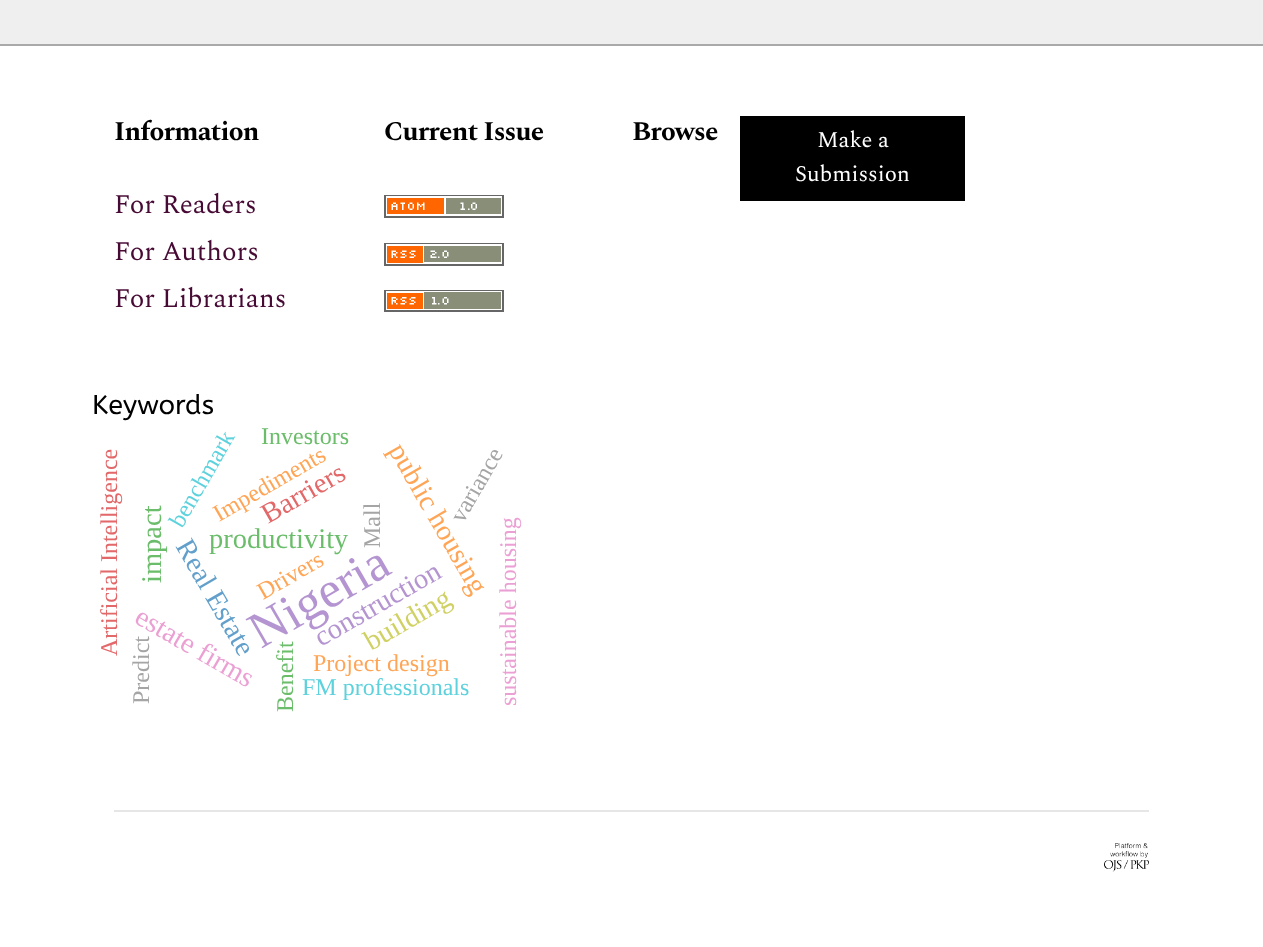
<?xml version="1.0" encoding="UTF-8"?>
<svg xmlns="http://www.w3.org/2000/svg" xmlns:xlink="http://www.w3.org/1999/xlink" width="1263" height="947">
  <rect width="100%" height="100%" fill="#efefef" />
  <rect y="46" width="1263" height="901" fill="#ffffff" />
  <rect y="44" width="1263" height="2" fill="#a9a9a9" />
  <image x="384" y="195" width="120" height="23" xlink:href="image1.png" />
  <image x="384" y="243" width="120" height="23" xlink:href="image2.png" />
  <image x="384" y="290" width="120" height="22" xlink:href="image3.png" />
  <rect x="740" y="116" width="225" height="85" fill="#000000" />
  <rect x="114" y="810" width="1035" height="2" fill="#e6e6e6" />
  <image x="1104" y="843" width="45" height="29" xlink:href="image4.png" />
  <text x="114" y="140" style="font-family: Spectral; font-size: 27px; font-weight: bold; letter-spacing: -0.75px; fill: #000000">Information</text>
  <text x="114" y="213" style="font-family: Spectral; font-size: 27px; fill: #470a34">For Readers</text>
  <text x="114" y="260" style="font-family: Spectral; font-size: 27px; fill: #470a34">For Authors</text>
  <text x="114" y="307" style="font-family: Spectral; font-size: 27px; fill: #470a34">For Librarians</text>
  <text x="384" y="140" style="font-family: Spectral; font-size: 27px; font-weight: bold; letter-spacing: -0.75px; fill: #000000">Current Issue</text>
  <text x="632" y="140" style="font-family: Spectral; font-size: 27px; font-weight: bold; letter-spacing: -0.75px; fill: #000000">Browse</text>
  <text x="817" y="147" style="font-family: Spectral; font-size: 22.5px; fill: #ffffff">Make a</text>
  <text x="795" y="181" style="font-family: Spectral; font-size: 22.5px; fill: #ffffff">Submission</text>
  <text x="92" y="414" style="font-family: ABeeZee; font-size: 27px; fill: #000000">Keywords</text>
  <text x="117" y="656" transform="rotate(-90 117 656)" style="font-family: Liberation Serif; font-size: 24px; fill: #e26869">Artificial Intelligence</text>
  <text x="182" y="529" transform="rotate(-60 182 529)" style="font-family: Liberation Serif; font-size: 24px; fill: #5dd2dd">benchmark</text>
  <text x="261" y="444" style="font-family: Liberation Serif; font-size: 24px; fill: #6bbd6b">Investors</text>
  <text x="161" y="583" transform="rotate(-90 161 583)" style="font-family: Liberation Serif; font-size: 28.5px; fill: #6bbd6b">impact</text>
  <text x="268" y="524" transform="rotate(-30 268 524)" style="font-family: Liberation Serif; font-size: 28.5px; fill: #e26869">Barriers</text>
  <text x="219" y="522" transform="rotate(-30 219 522)" style="font-family: Liberation Serif; font-size: 24px; fill: #ffa556">Impediments</text>
  <text x="380" y="548" transform="rotate(-90 380 548)" style="font-family: Liberation Serif; font-size: 24px; fill: #a5a5a5">Mall</text>
  <text x="516" y="706" transform="rotate(-90 516 706)" style="font-family: Liberation Serif; font-size: 24px; fill: #eba0d4">sustainable housing</text>
  <text x="261" y="649" transform="rotate(-30 261 649)" style="font-family: Liberation Serif; font-size: 51px; fill: #b495d1">Nigeria</text>
  <text x="388" y="450" transform="rotate(60 388 450)" style="font-family: Liberation Serif; font-size: 28.5px; fill: #ffa556">public housing</text>
  <text x="463" y="524" transform="rotate(-60 463 524)" style="font-family: Liberation Serif; font-size: 24px; fill: #a5a5a5">variance</text>
  <text x="175" y="546" transform="rotate(60 175 546)" style="font-family: Liberation Serif; font-size: 28.5px; fill: #62a0cb">Real Estate</text>
  <text x="209" y="548" style="font-family: Liberation Serif; font-size: 28.5px; fill: #6bbd6b">productivity</text>
  <text x="321" y="647" transform="rotate(-30 321 647)" style="font-family: Liberation Serif; font-size: 28.5px; fill: #b495d1">construction</text>
  <text x="263" y="600" transform="rotate(-30 263 600)" style="font-family: Liberation Serif; font-size: 24px; fill: #ffa556">Drivers</text>
  <text x="133" y="622" transform="rotate(30 133 622)" style="font-family: Liberation Serif; font-size: 28.5px; fill: #eba0d4">estate firms</text>
  <text x="371" y="651" transform="rotate(-30 371 651)" style="font-family: Liberation Serif; font-size: 28.5px; fill: #d0d164">building</text>
  <text x="149" y="704" transform="rotate(-90 149 704)" style="font-family: Liberation Serif; font-size: 24px; fill: #a5a5a5">Predict</text>
  <text x="293" y="712" transform="rotate(-90 293 712)" style="font-family: Liberation Serif; font-size: 24px; fill: #6bbd6b">Benefit</text>
  <text x="313" y="671" style="font-family: Liberation Serif; font-size: 24px; fill: #ffa556">Project design</text>
  <text x="302" y="695" style="font-family: Liberation Serif; font-size: 24px; fill: #5dd2dd">FM professionals</text>
</svg>
